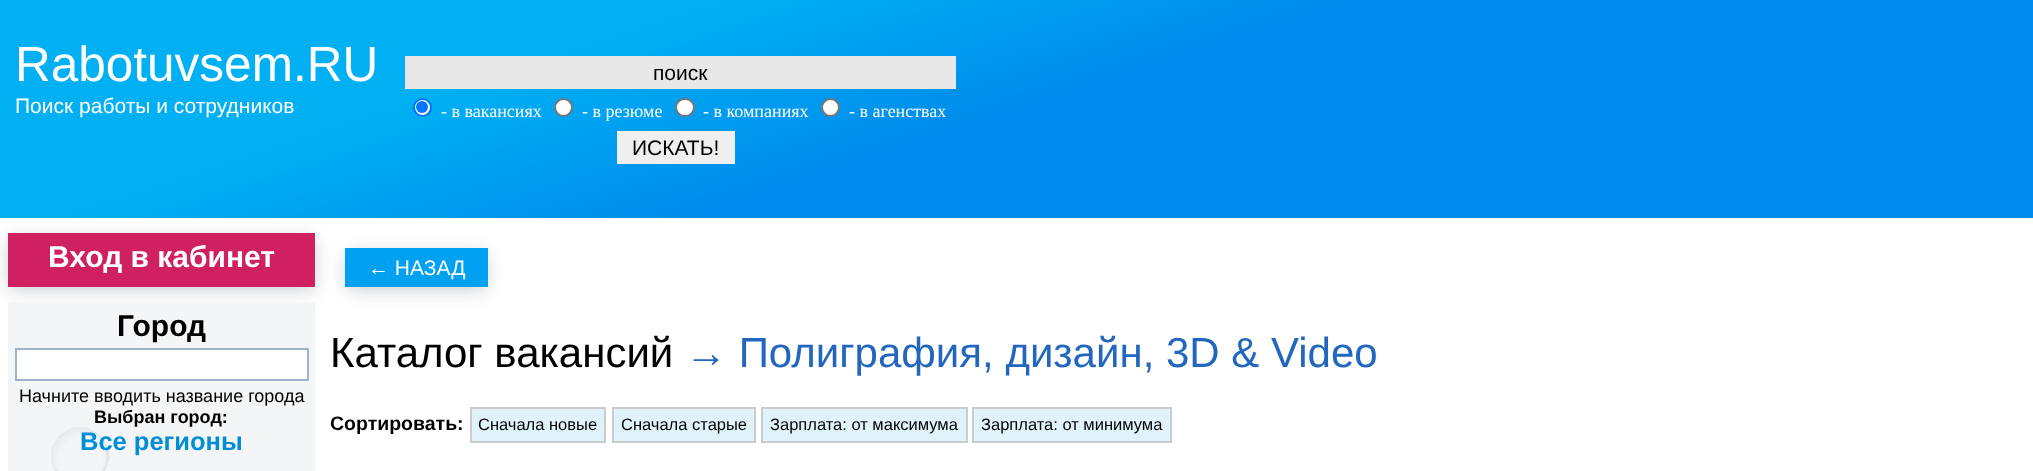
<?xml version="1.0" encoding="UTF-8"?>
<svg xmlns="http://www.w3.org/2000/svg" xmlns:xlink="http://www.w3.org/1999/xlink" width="2033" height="471">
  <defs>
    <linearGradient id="g1" gradientUnits="userSpaceOnUse" x1="888" y1="-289" x2="1146" y2="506"><stop offset="0.27" stop-color="#00b0f3" /><stop offset="0.5" stop-color="#008cec" /></linearGradient>
  </defs>
  <rect width="100%" height="100%" fill="#ffffff" />
  <rect width="2033" height="218" fill="url(#g1)" />
  <rect x="405" y="56" width="551" height="33" fill="#e8e8e8" />
  <circle cx="422.5" cy="107.5" r="8.5" fill="#ffffff" stroke="#0075ff" stroke-width="2" />
  <circle cx="422" cy="107" r="6" fill="#0075ff" />
  <circle cx="563.5" cy="107.5" r="8.5" fill="#ffffff" stroke="#767676" stroke-width="2" />
  <rect x="676" y="99" width="18" height="17" rx="8.5" fill="#ffffff" stroke="#767676" stroke-width="2" />
  <circle cx="830.5" cy="107.5" r="8.5" fill="#ffffff" stroke="#767676" stroke-width="2" />
  <rect x="617" y="131" width="118" height="33" fill="#efefef" />
  <rect x="9" y="239" width="305" height="51" fill="#070a19" fill-opacity="0.2" filter="blur(9px)" />
  <rect x="8" y="233" width="307" height="54" fill="#cf2160" />
  <rect x="8" y="302" width="307" height="169" fill="#f4f5f6" />
  <image x="51" y="427" width="59" height="44" xlink:href="image1.png" />
  <rect x="16" y="349" width="292" height="31" fill="#ffffff" stroke="#9eb2cc" stroke-width="2" />
  <rect x="347" y="254" width="139" height="36" fill="#070a19" fill-opacity="0.2" filter="blur(9px)" />
  <rect x="345" y="248" width="143" height="39" fill="#00a1f1" />
  <rect x="471" y="408" width="134" height="34" fill="#e0f3fa" stroke="#cccccc" stroke-width="2" />
  <rect x="613" y="408" width="142" height="34" fill="#e0f3fa" stroke="#cccccc" stroke-width="2" />
  <rect x="762" y="408" width="205" height="34" fill="#e0f3fa" stroke="#cccccc" stroke-width="2" />
  <rect x="973" y="408" width="198" height="34" fill="#e0f3fa" stroke="#cccccc" stroke-width="2" />
  <text x="15" y="81" style="font-family: Liberation Sans; font-size: 49.5px; fill: #ffffff">Rabotuvsem.RU</text>
  <text x="15" y="113" style="font-family: Liberation Sans; font-size: 21px; fill: #ffffff">Поиск работы и сотрудников</text>
  <text x="653" y="80" style="font-family: Liberation Sans; font-size: 21px; fill: #000000">поиск</text>
  <text x="441" y="117" style="font-family: Liberation Serif; font-size: 18px; fill: #ffffff">- в вакансиях</text>
  <text x="582" y="117" style="font-family: Liberation Serif; font-size: 18px; fill: #ffffff">- в резюме</text>
  <text x="703" y="117" style="font-family: Liberation Serif; font-size: 18px; fill: #ffffff">- в компаниях</text>
  <text x="849" y="117" style="font-family: Liberation Serif; font-size: 18px; fill: #ffffff">- в агенствах</text>
  <text x="632" y="155" style="font-family: Liberation Sans; font-size: 21px; fill: #000000">ИСКАТЬ!</text>
  <text x="48" y="267" style="font-family: Liberation Sans; font-size: 30px; font-weight: bold; fill: #ffffff">Вход в кабинет</text>
  <text x="117" y="336" style="font-family: Liberation Sans; font-size: 30px; font-weight: bold; fill: #000000">Город</text>
  <text x="19" y="402" style="font-family: Liberation Sans; font-size: 18px; fill: #000000">Начните вводить название города</text>
  <text x="94" y="423" style="font-family: Liberation Sans; font-size: 18px; font-weight: bold; fill: #000000">Выбран город:</text>
  <text x="80" y="450" style="font-family: Liberation Sans; font-size: 25.5px; font-weight: bold; fill: #008ed5">Все регионы</text>
  <text x="368" y="275" style="font-family: Liberation Sans; font-size: 21px; fill: #ffffff">← НАЗАД</text>
  <text x="330" y="367" style="font-family: Liberation Sans; font-size: 42px; fill: #000000">Каталог вакансий</text>
  <text x="685" y="367" style="font-family: Liberation Sans; font-size: 42px; fill: #2266be">→ Полиграфия, дизайн, 3D &amp; Video</text>
  <text x="330" y="430" style="font-family: Liberation Sans; font-size: 19.5px; font-weight: bold; fill: #000000">Сортировать:</text>
  <text x="478" y="430" style="font-family: Liberation Sans; font-size: 16.5px; fill: #000000">Сначала новые</text>
  <text x="621" y="430" style="font-family: Liberation Sans; font-size: 16.5px; fill: #000000">Сначала старые</text>
  <text x="770" y="430" style="font-family: Liberation Sans; font-size: 16.5px; fill: #000000">Зарплата: от максимума</text>
  <text x="981" y="430" style="font-family: Liberation Sans; font-size: 16.5px; fill: #000000">Зарплата: от минимума</text>
</svg>
